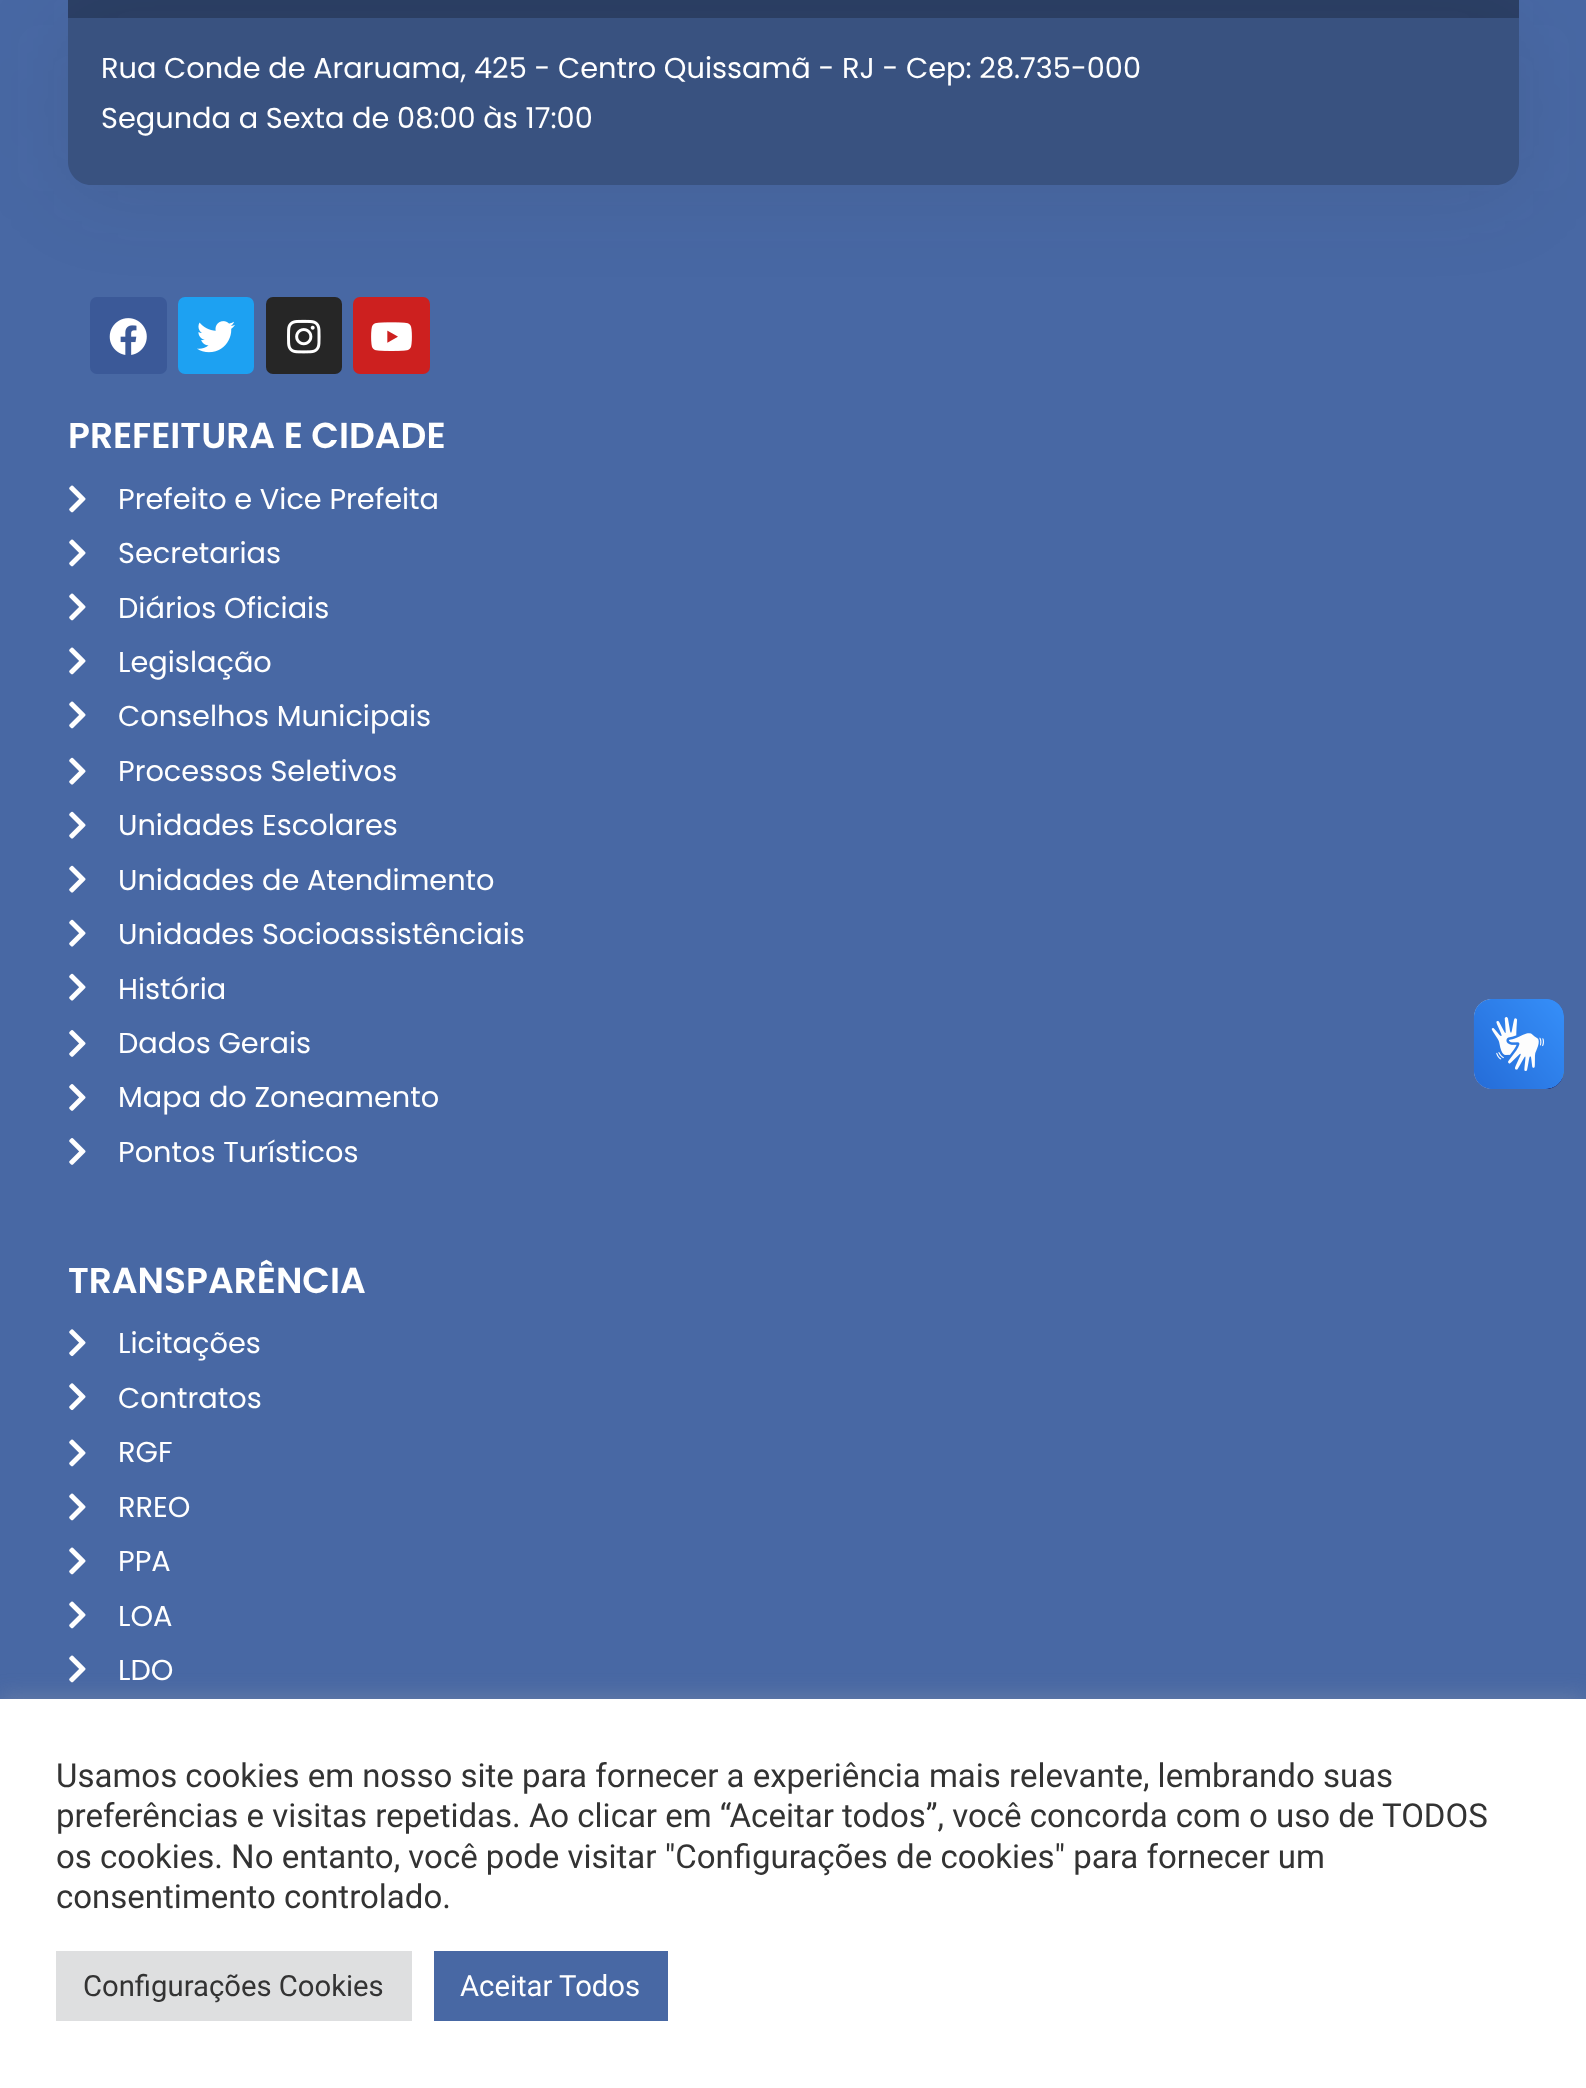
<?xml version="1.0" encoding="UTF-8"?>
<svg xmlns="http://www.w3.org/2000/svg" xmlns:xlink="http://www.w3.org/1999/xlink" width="1586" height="2088">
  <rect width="100%" height="100%" fill="#4868a4" />
  <rect x="68" width="1451" height="18" fill="#2b3f65" />
  <rect x="90" y="297" width="77" height="77" rx="7" fill="#3b5998" />
  <image x="109" y="318" width="38" height="37" xlink:href="image1.png" />
  <rect x="178" y="297" width="76" height="77" rx="7" fill="#1da1f2" />
  <image x="197" y="321" width="38" height="32" xlink:href="image2.png" />
  <rect x="266" y="297" width="76" height="77" rx="7" fill="#262626" />
  <image x="287" y="319" width="34" height="35" xlink:href="image3.png" />
  <rect x="353" y="297" width="77" height="77" rx="7" fill="#cd201f" />
  <image x="371" y="322" width="41" height="29" xlink:href="image4.png" />
  <rect x="68" y="25" width="1451" height="166" rx="23" fill="#242424" fill-opacity="0.1" filter="blur(45px)" />
  <path d="M 68 18 h 1451 v 144 c 0 12.5 -10.5 23 -23 23 h -1405 c -12.5 0 -23 -10.5 -23 -23 z" fill="#395280" />
  <image x="69" y="485" width="17" height="28" xlink:href="image5.png" />
  <image x="69" y="539" width="17" height="28" xlink:href="image5.png" />
  <image x="69" y="593" width="17" height="28" xlink:href="image5.png" />
  <image x="69" y="647" width="17" height="28" xlink:href="image5.png" />
  <image x="69" y="701" width="17" height="28" xlink:href="image5.png" />
  <image x="69" y="757" width="17" height="28" xlink:href="image6.png" />
  <image x="69" y="811" width="17" height="28" xlink:href="image6.png" />
  <image x="69" y="865" width="17" height="28" xlink:href="image6.png" />
  <image x="69" y="919" width="17" height="28" xlink:href="image6.png" />
  <image x="69" y="973" width="17" height="28" xlink:href="image6.png" />
  <image x="69" y="1030" width="17" height="27" xlink:href="image7.png" />
  <image x="69" y="1084" width="17" height="27" xlink:href="image7.png" />
  <image x="69" y="1138" width="17" height="27" xlink:href="image7.png" />
  <image x="69" y="1329" width="17" height="28" xlink:href="image8.png" />
  <image x="69" y="1383" width="17" height="28" xlink:href="image8.png" />
  <image x="69" y="1439" width="17" height="28" xlink:href="image5.png" />
  <image x="69" y="1493" width="17" height="28" xlink:href="image5.png" />
  <image x="69" y="1547" width="17" height="28" xlink:href="image5.png" />
  <image x="69" y="1601" width="17" height="28" xlink:href="image5.png" />
  <image x="69" y="1655" width="17" height="28" xlink:href="image5.png" />
  <image x="1473" y="999" width="91" height="90" xlink:href="image9.png" />
  <image x="1474" y="999" width="90" height="90" xlink:href="image10.png" />
  <rect y="1697" width="1586" height="389" fill="#acabab" fill-opacity="0.3" filter="blur(11px)" />
  <rect y="1699" width="1586" height="389" fill="#ffffff" />
  <rect x="56" y="1951" width="356" height="70" fill="#dedfe0" />
  <rect x="434" y="1951" width="234" height="70" fill="#4868a4" />
  <text x="101" y="78" style="font-family: Poppins; font-size: 28.8px; fill: #ffffff">Rua Conde de Araruama, 425 - Centro Quissamã - RJ - Cep: 28.735-000</text>
  <text x="101" y="128" style="font-family: Poppins; font-size: 28.8px; fill: #ffffff">Segunda a Sexta de 08:00 às 17:00</text>
  <text x="68" y="448" style="font-family: Poppins; font-size: 36px; font-weight: 600; fill: #ffffff">PREFEITURA E CIDADE</text>
  <text x="118" y="509" style="font-family: Poppins; font-size: 28.8px; fill: #ffffff">Prefeito e Vice Prefeita</text>
  <text x="118" y="563" style="font-family: Poppins; font-size: 28.8px; fill: #ffffff">Secretarias</text>
  <text x="118" y="618" style="font-family: Poppins; font-size: 28.8px; fill: #ffffff">Diários Oficiais</text>
  <text x="118" y="672" style="font-family: Poppins; font-size: 28.8px; fill: #ffffff">Legislação</text>
  <text x="118" y="726" style="font-family: Poppins; font-size: 28.8px; fill: #ffffff">Conselhos Municipais</text>
  <text x="118" y="781" style="font-family: Poppins; font-size: 28.8px; fill: #ffffff">Processos Seletivos</text>
  <text x="118" y="835" style="font-family: Poppins; font-size: 28.8px; fill: #ffffff">Unidades Escolares</text>
  <text x="118" y="890" style="font-family: Poppins; font-size: 28.8px; fill: #ffffff">Unidades de Atendimento</text>
  <text x="118" y="944" style="font-family: Poppins; font-size: 28.8px; fill: #ffffff">Unidades Socioassistênciais</text>
  <text x="118" y="999" style="font-family: Poppins; font-size: 28.8px; fill: #ffffff">História</text>
  <text x="118" y="1053" style="font-family: Poppins; font-size: 28.8px; fill: #ffffff">Dados Gerais</text>
  <text x="118" y="1107" style="font-family: Poppins; font-size: 28.8px; fill: #ffffff">Mapa do Zoneamento</text>
  <text x="118" y="1162" style="font-family: Poppins; font-size: 28.8px; fill: #ffffff">Pontos Turísticos</text>
  <text x="68" y="1293" style="font-family: Poppins; font-size: 36px; font-weight: 600; fill: #ffffff">TRANSPARÊNCIA</text>
  <text x="118" y="1353" style="font-family: Poppins; font-size: 28.8px; fill: #ffffff">Licitações</text>
  <text x="118" y="1408" style="font-family: Poppins; font-size: 28.8px; fill: #ffffff">Contratos</text>
  <text x="118" y="1462" style="font-family: Poppins; font-size: 28.8px; fill: #ffffff">RGF</text>
  <text x="118" y="1517" style="font-family: Poppins; font-size: 28.8px; fill: #ffffff">RREO</text>
  <text x="118" y="1571" style="font-family: Poppins; font-size: 28.8px; fill: #ffffff">PPA</text>
  <text x="118" y="1626" style="font-family: Poppins; font-size: 28.8px; fill: #ffffff">LOA</text>
  <text x="118" y="1680" style="font-family: Poppins; font-size: 28.8px; fill: #ffffff">LDO</text>
  <text x="56" y="1787" style="font-family: Roboto; font-size: 33px; fill: #333333">Usamos cookies em nosso site para fornecer a experiência mais relevante, lembrando suas</text>
  <text x="56" y="1827" style="font-family: Roboto; font-size: 33px; fill: #333333">preferências e visitas repetidas. Ao clicar em “Aceitar todos”, você concorda com o uso de TODOS</text>
  <text x="56" y="1868" style="font-family: Roboto; font-size: 33px; fill: #333333">os cookies. No entanto, você pode visitar "Configurações de cookies" para fornecer um</text>
  <text x="56" y="1908" style="font-family: Roboto; font-size: 33px; fill: #333333">consentimento controlado.</text>
  <text x="83" y="1996" style="font-family: Roboto; font-size: 29.25px; fill: #333333">Configurações Cookies</text>
  <text x="460" y="1996" style="font-family: Roboto; font-size: 29.25px; fill: #ffffff">Aceitar Todos</text>
</svg>
